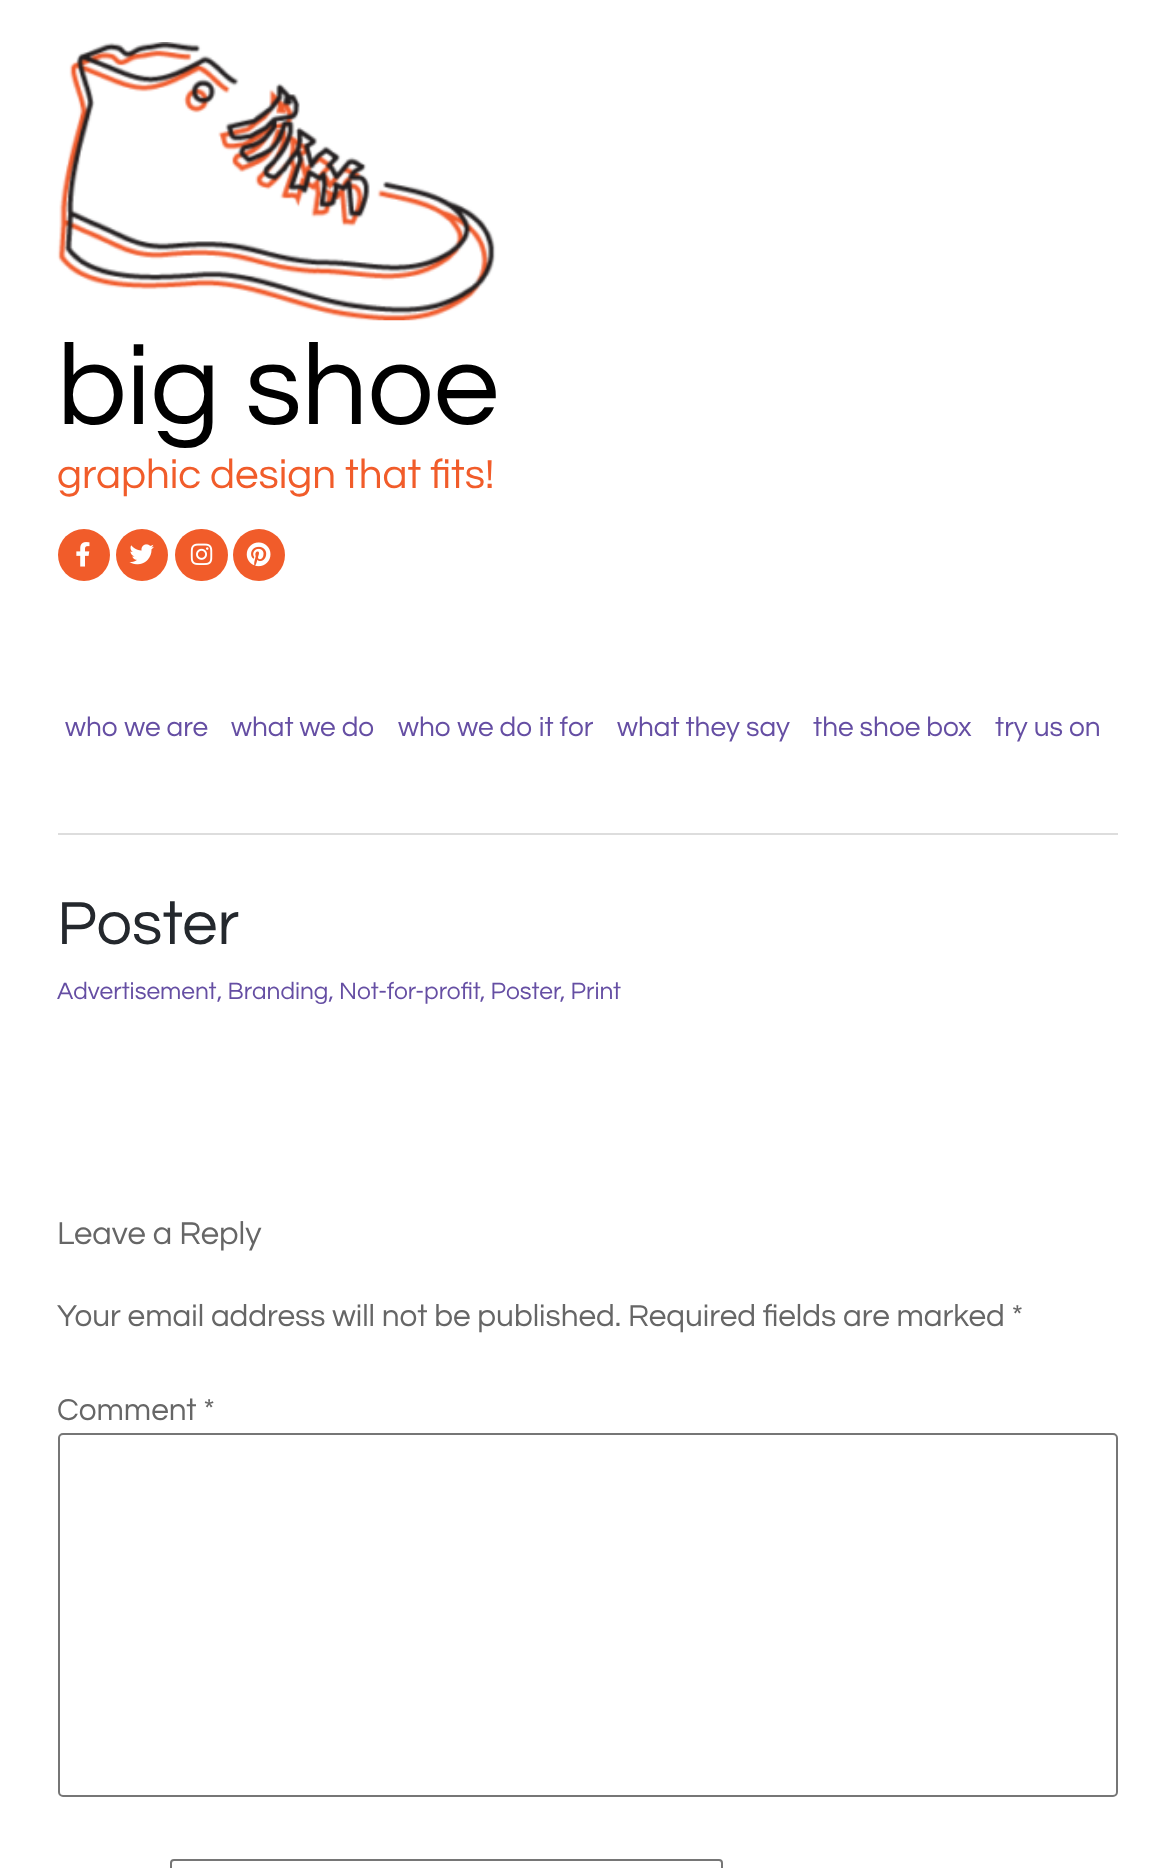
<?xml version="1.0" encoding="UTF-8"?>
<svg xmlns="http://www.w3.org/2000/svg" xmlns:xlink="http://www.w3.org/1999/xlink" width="1176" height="1868">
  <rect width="100%" height="100%" fill="#ffffff" />
  <image x="57" y="42" width="439" height="279" xlink:href="image1.png" />
  <circle cx="84" cy="555" r="26" fill="#f15c2a" />
  <image x="76" y="542" width="14" height="25" xlink:href="image2.png" />
  <circle cx="142" cy="555" r="26" fill="#f15c2a" />
  <image x="129" y="544" width="25" height="21" xlink:href="image3.png" />
  <rect x="175" y="529" width="53" height="52" rx="26" fill="#f15c2a" />
  <image x="190" y="543" width="23" height="22" xlink:href="image4.png" />
  <circle cx="259" cy="555" r="26" fill="#f15c2a" />
  <image x="246" y="542" width="25" height="25" xlink:href="image5.png" />
  <rect x="58" y="833" width="1060" height="2" fill="#dddddd" />
  <rect x="59" y="1434" width="1058" height="362" rx="4" fill="none" stroke="#767676" stroke-width="2" />
  <rect x="171" y="1860" width="551" height="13" rx="3" fill="none" stroke="#767676" stroke-width="2" />
  <text x="57" y="424" style="font-family: Questrial; font-size: 117px; fill: #000000">big shoe</text>
  <text x="57" y="488" style="font-family: Questrial; font-size: 42px; fill: #f15c2a">graphic design that fits!</text>
  <text x="65" y="736" style="font-family: Questrial; font-size: 28px; fill: #654ea3">who we are</text>
  <text x="231" y="736" style="font-family: Questrial; font-size: 28px; fill: #654ea3">what we do</text>
  <text x="398" y="736" style="font-family: Questrial; font-size: 28px; fill: #654ea3">who we do it for</text>
  <text x="617" y="736" style="font-family: Questrial; font-size: 28px; fill: #654ea3">what they say</text>
  <text x="813" y="736" style="font-family: Questrial; font-size: 28px; fill: #654ea3">the shoe box</text>
  <text x="995" y="736" style="font-family: Questrial; font-size: 28px; fill: #654ea3">try us on</text>
  <text x="57" y="944" style="font-family: Questrial; font-size: 63px; fill: #24282d">Poster</text>
  <text x="57" y="999" style="font-family: Questrial; font-size: 24.5px; fill: #654ea3">Advertisement</text>
  <text x="217" y="999" style="font-family: Questrial; font-size: 24.5px; fill: #654ea3">, Branding, Not-for-profit</text>
  <text x="480" y="999" style="font-family: Questrial; font-size: 24.5px; fill: #654ea3">, Poster</text>
  <text x="560" y="999" style="font-family: Questrial; font-size: 24.5px; fill: #654ea3">, Print</text>
  <text x="57" y="1244" style="font-family: Questrial; font-size: 32.75px; fill: #666666">Leave a Reply</text>
  <text x="57" y="1326" style="font-family: Questrial; font-size: 31.5px; fill: #666666">Your email address will not be published. Required fields are marked *</text>
  <text x="57" y="1420" style="font-family: Questrial; font-size: 31.5px; fill: #666666">Comment *</text>
</svg>
